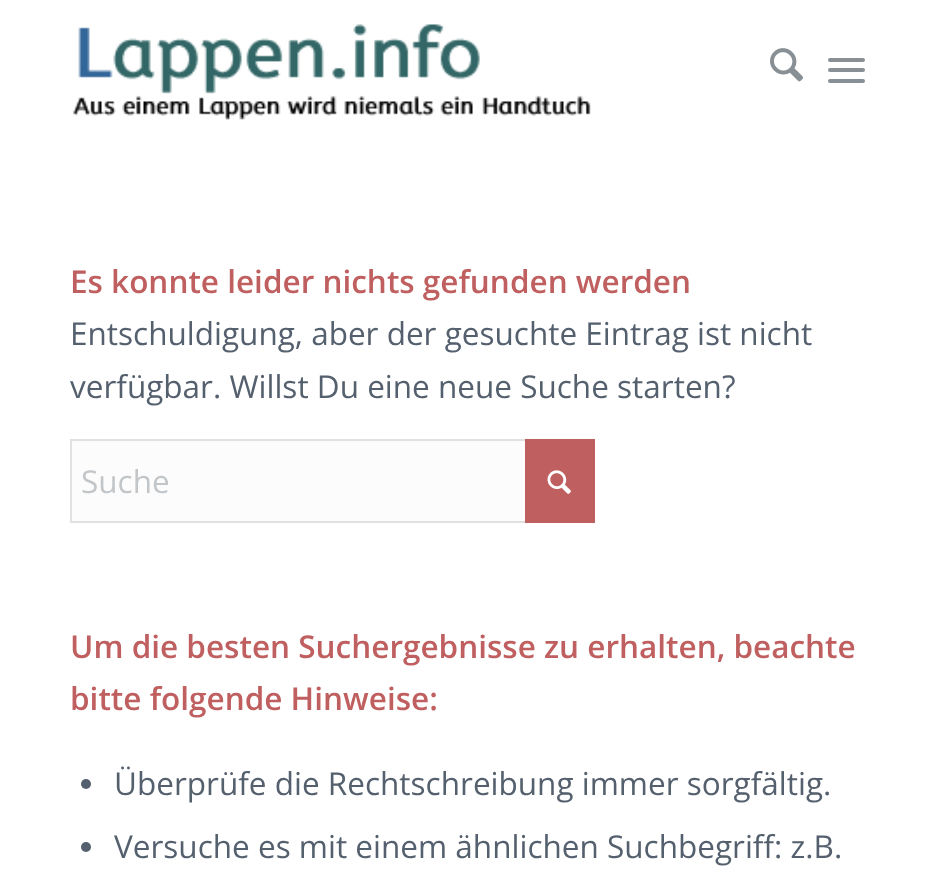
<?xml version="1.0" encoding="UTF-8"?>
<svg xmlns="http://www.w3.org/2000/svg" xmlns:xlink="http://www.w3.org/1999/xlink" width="933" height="880">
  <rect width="100%" height="100%" fill="#ffffff" />
  <image x="73" y="24" width="518" height="96" xlink:href="image1.png" />
  <image x="770" y="48" width="33" height="34" xlink:href="image2.png" />
  <rect x="828" y="68" width="37" height="4" rx="2" fill="#889095" />
  <rect x="828" y="58" width="37" height="4" rx="2" fill="#889095" />
  <rect x="828" y="79" width="37" height="4" rx="2" fill="#889095" />
  <rect x="72" y="441" width="453" height="80" fill="#fcfcfc" />
  <rect x="71" y="440" width="523" height="82" fill="none" stroke="#e1e1e1" stroke-width="2" />
  <rect x="525" y="439" width="70" height="84" fill="#c05f5f" />
  <image x="547" y="470" width="24" height="24" xlink:href="image3.png" />
  <circle cx="86" cy="784" r="5" fill="#55606e" />
  <circle cx="86" cy="847" r="5" fill="#55606e" />
  <text x="70" y="293" style="font-family: Open Sans; font-size: 31.5px; font-weight: 600; fill: #c05f5f">Es konnte leider nichts gefunden werden</text>
  <text x="70" y="345" style="font-family: Open Sans; font-size: 31.5px; fill: #55606e">Entschuldigung, aber der gesuchte Eintrag ist nicht</text>
  <text x="70" y="398" style="font-family: Open Sans; font-size: 31.5px; fill: #55606e">verfügbar. Willst Du eine neue Suche starten?</text>
  <text x="81" y="493" style="font-family: Open Sans; font-size: 31.5px; fill: #c2c6c9">Suche</text>
  <text x="70" y="658" style="font-family: Open Sans; font-size: 31.5px; font-weight: 600; fill: #c05f5f">Um die besten Suchergebnisse zu erhalten, beachte</text>
  <text x="70" y="710" style="font-family: Open Sans; font-size: 31.5px; font-weight: 600; fill: #c05f5f">bitte folgende Hinweise:</text>
  <text x="114" y="795" style="font-family: Open Sans; font-size: 31.5px; fill: #55606e">Überprüfe die Rechtschreibung immer sorgfältig.</text>
  <text x="114" y="858" style="font-family: Open Sans; font-size: 31.5px; fill: #55606e">Versuche es mit einem ähnlichen Suchbegriff: z.B.</text>
</svg>
